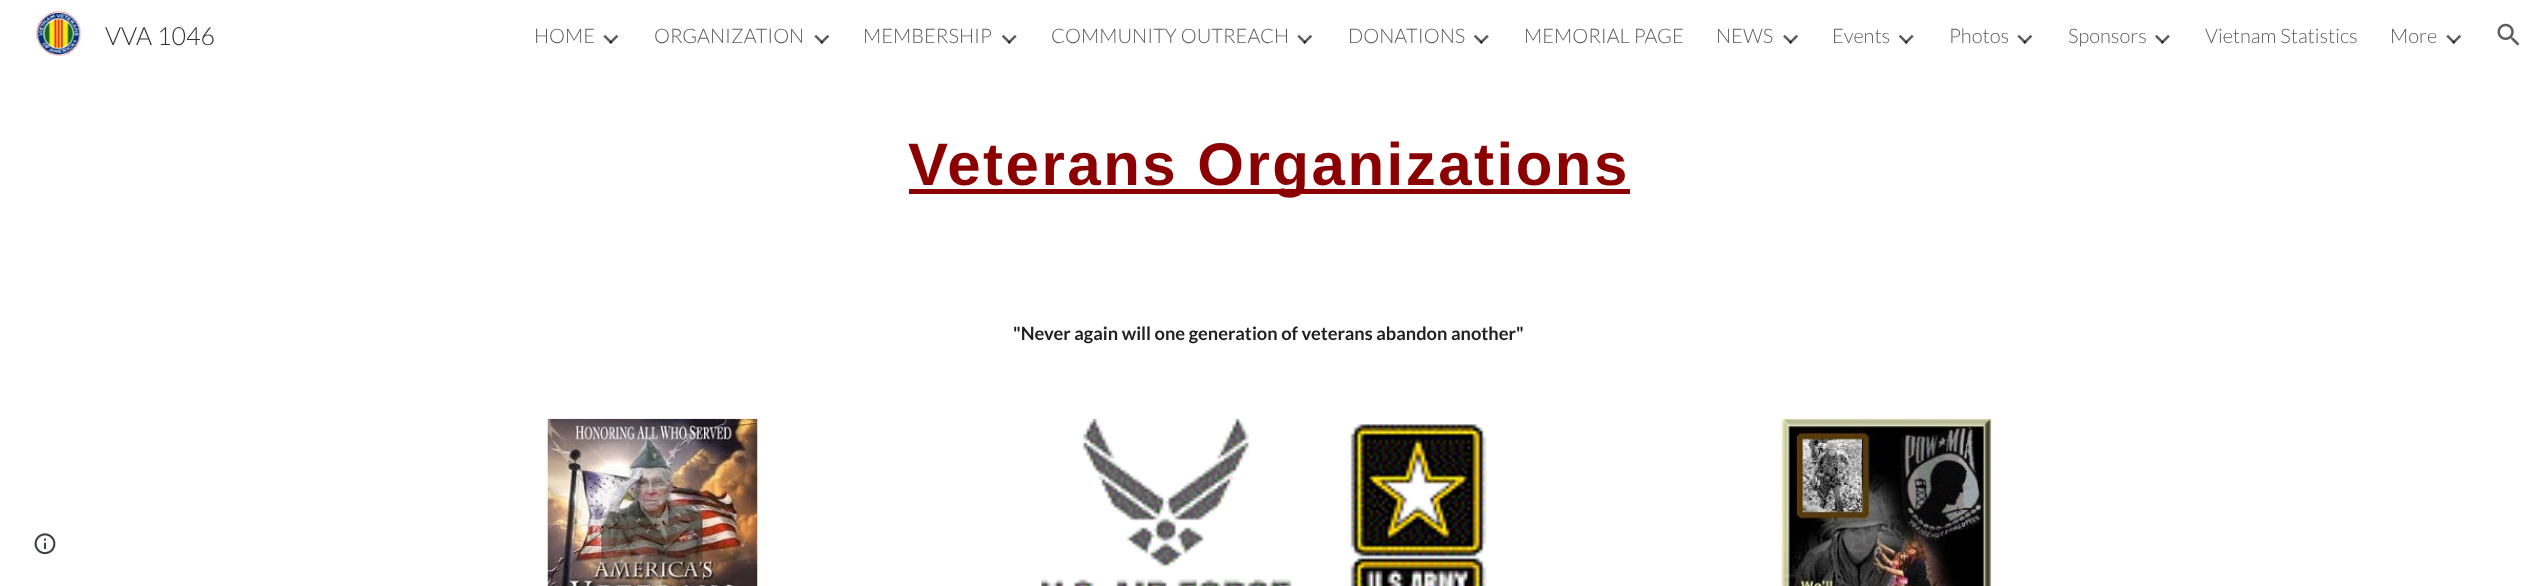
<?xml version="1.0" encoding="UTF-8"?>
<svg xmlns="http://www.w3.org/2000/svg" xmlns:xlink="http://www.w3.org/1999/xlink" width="2538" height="586">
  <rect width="100%" height="100%" fill="#ffffff" />
  <image x="36" y="11" width="45" height="45" xlink:href="image1.png" />
  <image x="603" y="34" width="16" height="10" xlink:href="image2.png" />
  <image x="814" y="34" width="16" height="10" xlink:href="image3.png" />
  <image x="1001" y="34" width="16" height="10" xlink:href="image4.png" />
  <image x="1297" y="34" width="16" height="10" xlink:href="image5.png" />
  <image x="1474" y="34" width="15" height="10" xlink:href="image6.png" />
  <image x="1783" y="34" width="15" height="10" xlink:href="image7.png" />
  <image x="1898" y="34" width="16" height="10" xlink:href="image8.png" />
  <image x="2017" y="34" width="16" height="10" xlink:href="image9.png" />
  <image x="2155" y="34" width="15" height="10" xlink:href="image10.png" />
  <image x="2446" y="34" width="16" height="10" xlink:href="image11.png" />
  <image x="2497" y="23" width="23" height="23" xlink:href="image12.png" />
  <rect x="909" y="189" width="721" height="5" fill="#8b0000" />
  <image x="547" y="418" width="211" height="168" xlink:href="image13.png" />
  <image x="1041" y="418" width="446" height="168" xlink:href="image14.png" />
  <image x="1781" y="418" width="211" height="168" xlink:href="image15.png" />
  <image x="34" y="533" width="22" height="22" xlink:href="image16.png" />
  <text x="105" y="45" style="font-family: Lato; font-size: 25px; font-weight: 300; fill: #333333">VVA 1046</text>
  <text x="534" y="43" style="font-family: Lato; font-size: 20px; font-weight: 300; fill: #5c5c5c">HOME</text>
  <text x="654" y="43" style="font-family: Lato; font-size: 20px; font-weight: 300; fill: #5c5c5c">ORGANIZATION</text>
  <text x="863" y="43" style="font-family: Lato; font-size: 20px; font-weight: 300; fill: #5c5c5c">MEMBERSHIP</text>
  <text x="1051" y="43" style="font-family: Lato; font-size: 20px; font-weight: 300; fill: #5c5c5c">COMMUNITY OUTREACH</text>
  <text x="1348" y="43" style="font-family: Lato; font-size: 20px; font-weight: 300; fill: #5c5c5c">DONATIONS</text>
  <text x="1524" y="43" style="font-family: Lato; font-size: 20px; font-weight: 300; fill: #5c5c5c">MEMORIAL PAGE</text>
  <text x="1716" y="43" style="font-family: Lato; font-size: 20px; font-weight: 300; fill: #5c5c5c">NEWS</text>
  <text x="1832" y="43" style="font-family: Lato; font-size: 20px; font-weight: 300; fill: #5c5c5c">Events</text>
  <text x="1949" y="43" style="font-family: Lato; font-size: 20px; font-weight: 300; fill: #5c5c5c">Photos</text>
  <text x="2068" y="43" style="font-family: Lato; font-size: 20px; font-weight: 300; fill: #5c5c5c">Sponsors</text>
  <text x="2205" y="43" style="font-family: Lato; font-size: 20px; font-weight: 300; fill: #5c5c5c">Vietnam Statistics</text>
  <text x="2390" y="43" style="font-family: Lato; font-size: 20px; font-weight: 300; fill: #5c5c5c">More</text>
  <text x="908" y="185" style="font-family: Liberation Sans; font-size: 60px; font-weight: bold; letter-spacing: 2.5px; fill: #8b0000">Veterans Organizations</text>
  <text x="1013" y="340" style="font-family: Lato; font-size: 18.3px; font-weight: bold; fill: #212121">"Never again will one generation of veterans abandon another"</text>
</svg>
